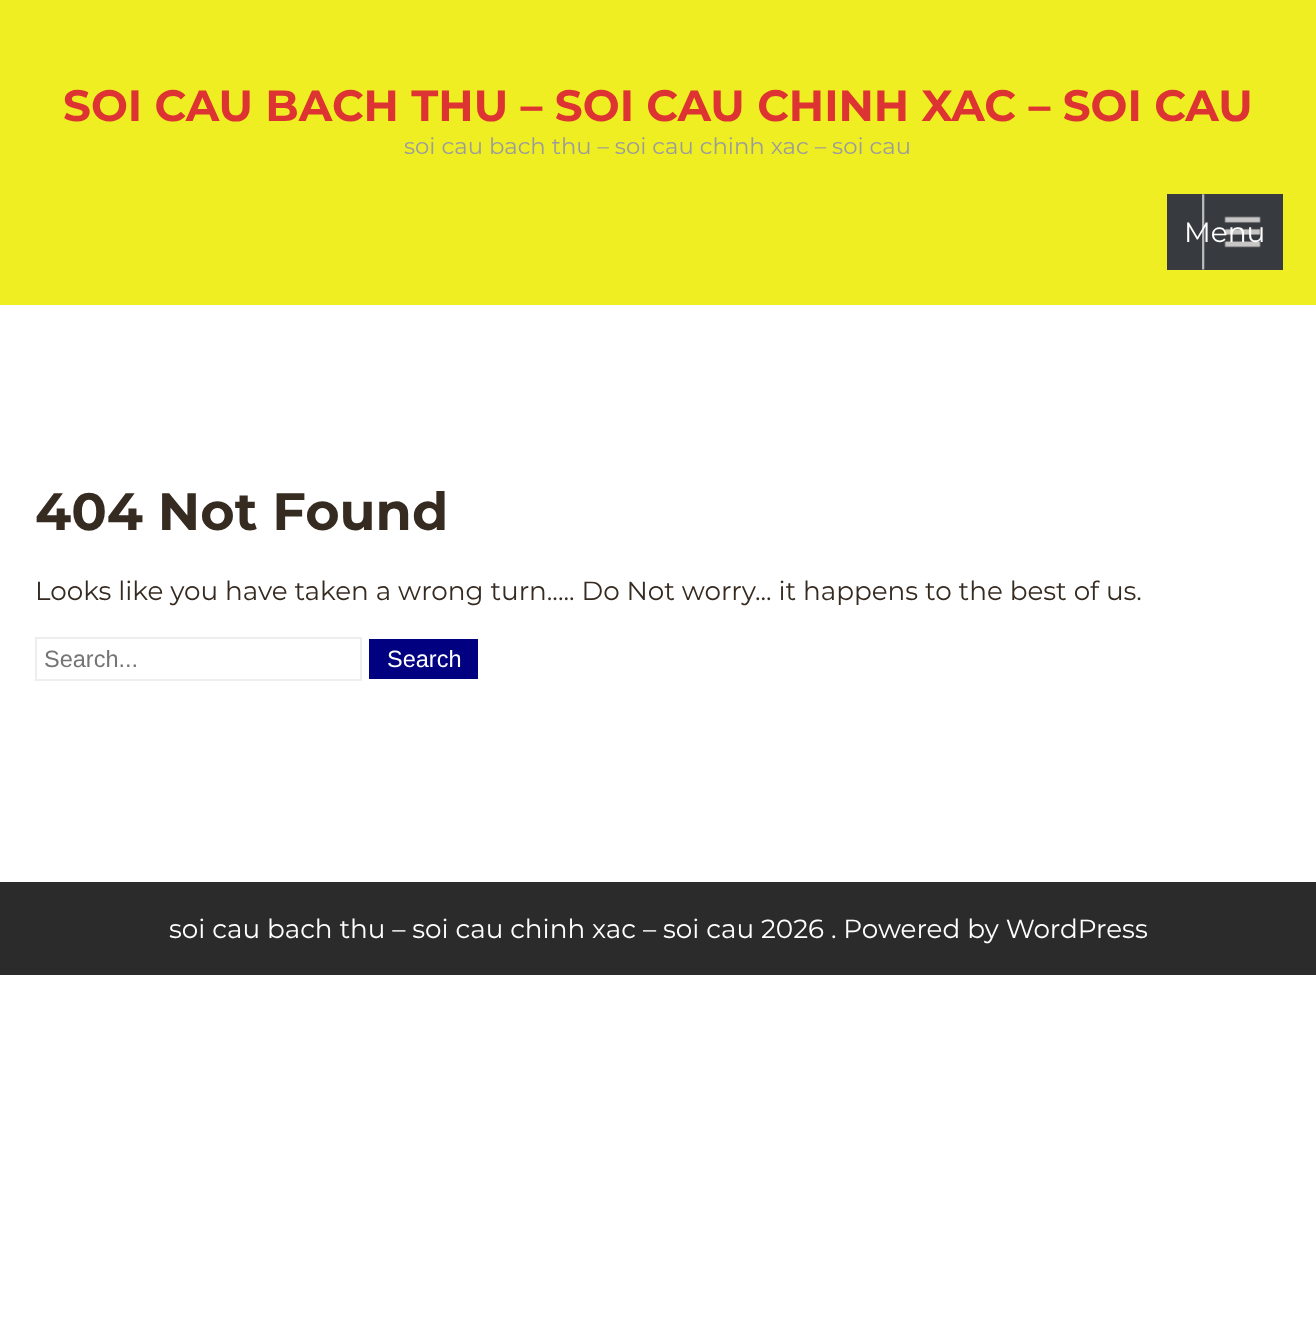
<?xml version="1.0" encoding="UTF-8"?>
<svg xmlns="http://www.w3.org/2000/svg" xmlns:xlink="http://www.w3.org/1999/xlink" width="1316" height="1327">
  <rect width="100%" height="100%" fill="#ffffff" />
  <rect width="1316" height="305" fill="#eeee22" />
  <rect x="1167" y="194" width="116" height="76" fill="#373a3f" />
  <image x="1202" y="194" width="59" height="76" xlink:href="image1.png" />
  <rect x="36" y="638" width="325" height="42" fill="none" stroke="#eeeeee" stroke-width="2" />
  <rect x="369" y="639" width="109" height="40" fill="#000080" />
  <rect y="882" width="1316" height="93" fill="#2b2b2b" />
  <text x="63" y="121" style="font-family: Montserrat; font-size: 43.75px; font-weight: 100; fill: #dd3333">SOI CAU BACH THU – SOI CAU CHINH XAC – SOI CAU</text>
  <text x="404" y="154" style="font-family: 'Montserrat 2'; font-size: 22.75px; font-weight: 100; fill: #9c9c9c">soi cau bach thu – soi cau chinh xac – soi cau</text>
  <text x="1184" y="242" style="font-family: 'Montserrat 2'; font-size: 28px; font-weight: 100; fill: #ffffff">Menu</text>
  <text x="35" y="530" style="font-family: Montserrat; font-size: 52.5px; font-weight: 100; fill: #362b21">404 Not Found</text>
  <text x="35" y="600" style="font-family: 'Montserrat 2'; font-size: 26.25px; font-weight: 100; fill: #362b21">Looks like you have taken a wrong turn..... Do Not worry... it happens to the best of us.</text>
  <text x="44" y="667" style="font-family: Liberation Sans; font-size: 23.5px; fill: #757575">Search...</text>
  <text x="387" y="667" style="font-family: Liberation Sans; font-size: 23.5px; fill: #ffffff">Search</text>
  <text x="169" y="938" style="font-family: 'Montserrat 2'; font-size: 26.25px; font-weight: 100; fill: #ffffff">soi cau bach thu – soi cau chinh xac – soi cau 2026 . Powered by WordPress</text>
</svg>
